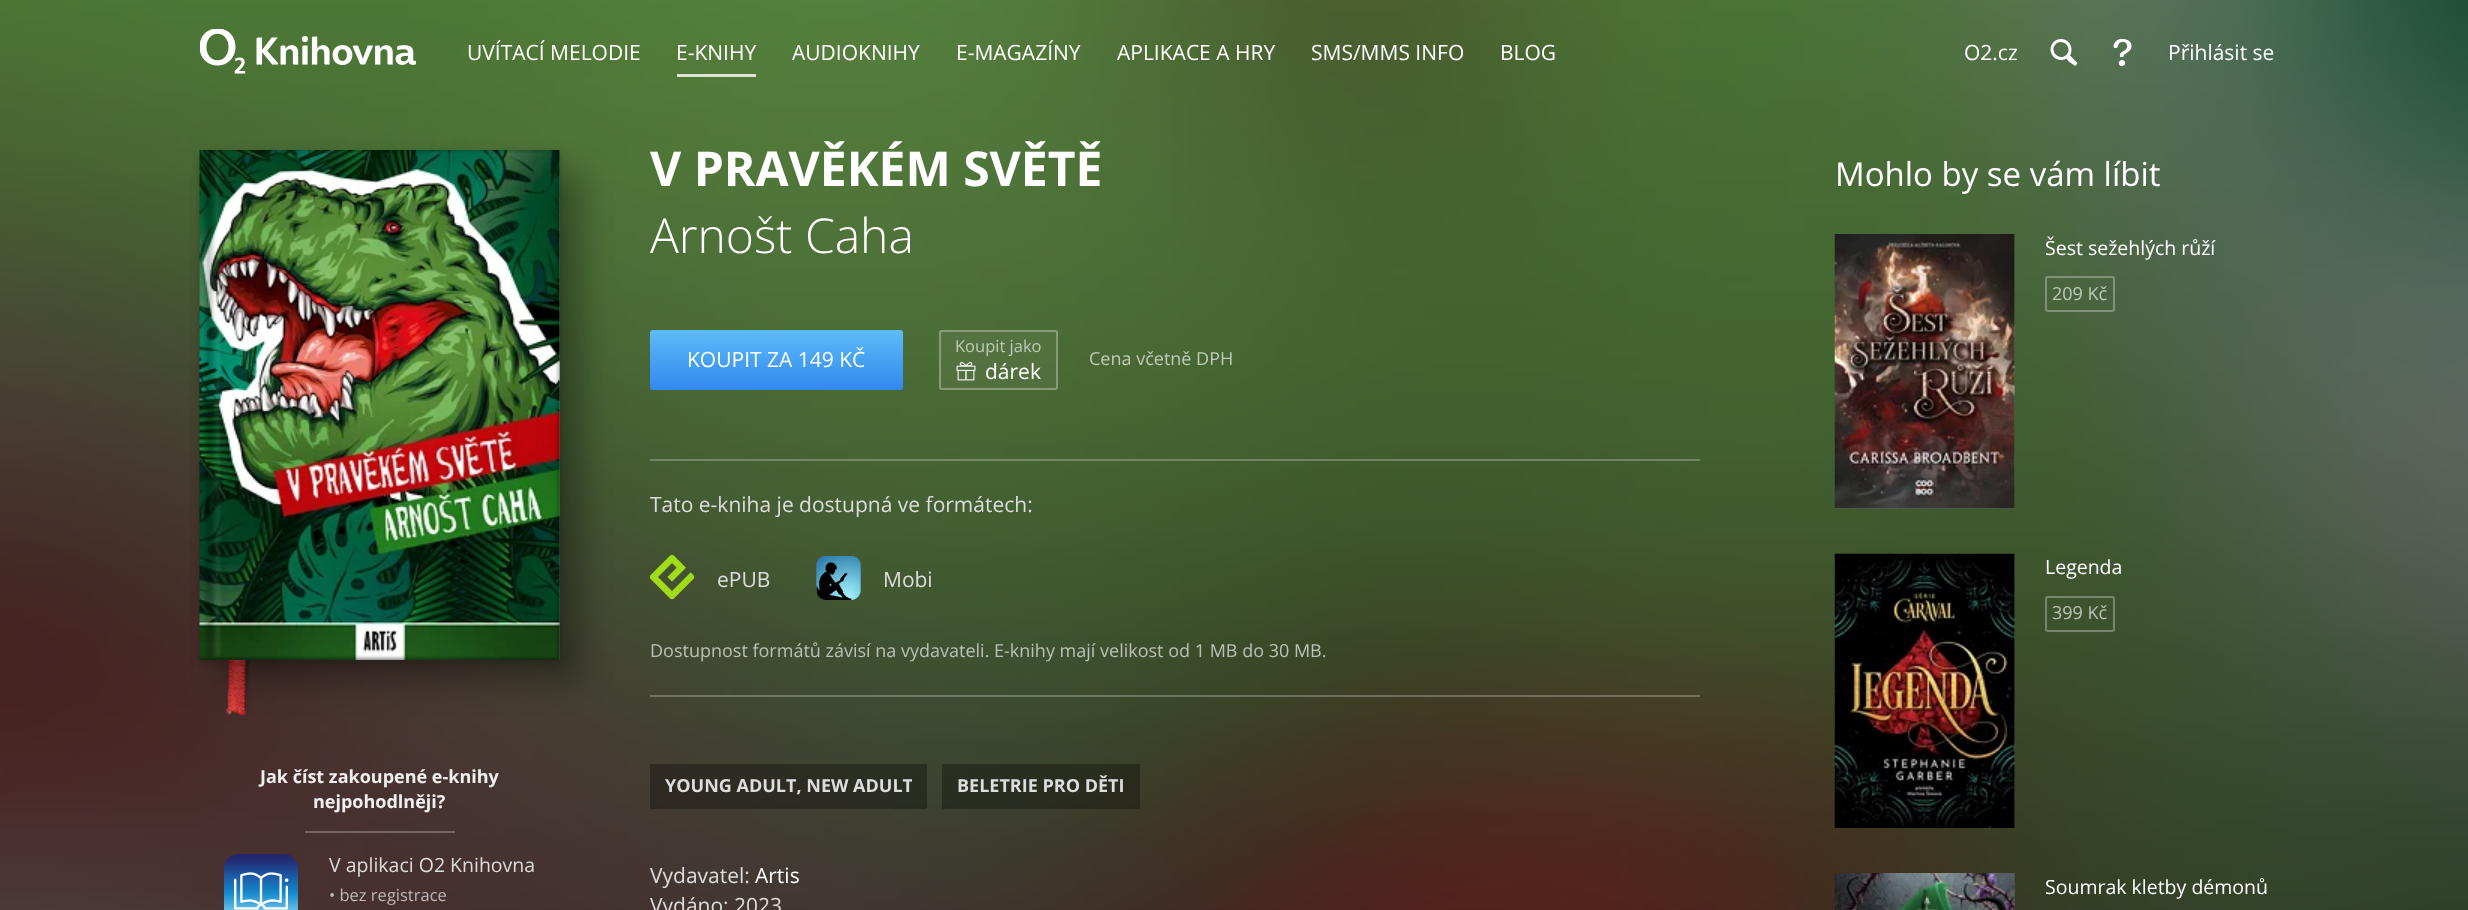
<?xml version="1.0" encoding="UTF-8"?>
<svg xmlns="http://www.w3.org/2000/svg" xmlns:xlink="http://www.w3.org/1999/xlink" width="2468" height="910">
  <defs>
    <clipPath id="clip1"><path d="M 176 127 h 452 v 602 h -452 z m 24 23 h 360 v 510 h -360 z" clip-rule="evenodd" /></clipPath>
    <linearGradient id="g1" gradientUnits="userSpaceOnUse" x1="776" y1="330" x2="776" y2="390"><stop offset="0" stop-color="#5dbcf7" /><stop offset="1" stop-color="#3188ed" /></linearGradient>
    <clipPath id="clip2"><rect x="665" y="764" width="247" height="45" /></clipPath>
  </defs>
  <rect width="100%" height="100%" fill="#ffffff" />
  <image x="0" y="0" width="2468" height="910" xlink:href="image1.png" />
  <image x="200" y="29" width="216" height="45" xlink:href="image2.png" />
  <rect x="677" y="74" width="79" height="3" fill="#dce4d8" />
  <image x="2050" y="39" width="28" height="27" xlink:href="image3.png" />
  <image x="2113" y="39" width="19" height="27" xlink:href="image4.png" />
  <image x="226" y="660" width="24" height="56" xlink:href="image9.png" />
  <rect x="200" y="153" width="360" height="510" fill="#000000" fill-opacity="0.2" filter="blur(4px)" />
  <rect x="559" y="150" width="1" height="510" fill="#ffffff" fill-opacity="0.1" />
  <image x="199" y="150" width="361" height="510" xlink:href="image8.png" />
  <g clip-path="url(#clip1)">
    <rect x="222" y="173" width="360" height="510" fill="#000000" fill-opacity="0.3" filter="blur(15px)" />
  </g>
  <image x="199" y="150" width="361" height="6" xlink:href="image5.png" />
  <image x="203" y="156" width="357" height="498" xlink:href="image6.png" />
  <image x="199" y="654" width="361" height="6" xlink:href="image7.png" />
  <rect x="305" y="831" width="150" height="2" fill="#ffffff" fill-opacity="0.25" />
  <image x="224" y="854" width="74" height="56" xlink:href="image10.png" />
  <rect x="650" y="330" width="253" height="60" rx="3" fill="url(#g1)" />
  <rect x="939" y="330" width="119" height="60" fill="#ffffff" fill-opacity="0.05" />
  <rect x="940" y="331" width="117" height="58" rx="2" fill="none" stroke="#ffffff" stroke-opacity="0.3" stroke-width="2" />
  <image x="956" y="362" width="20" height="19" xlink:href="image11.png" />
  <rect x="650" y="459" width="1050" height="2" fill="#ffffff" fill-opacity="0.25" />
  <image x="650" y="554" width="45" height="46" xlink:href="image12.png" />
  <image x="816" y="556" width="45" height="44" xlink:href="image13.png" />
  <rect x="650" y="695" width="1050" height="2" fill="#ffffff" fill-opacity="0.25" />
  <rect x="650" y="764" width="277" height="45" rx="1" fill="#000000" fill-opacity="0.3" />
  <rect x="942" y="764" width="198" height="45" rx="1" fill="#000000" fill-opacity="0.3" />
  <rect x="1835" y="234" width="180" height="275" fill="#ffffff" fill-opacity="0.1" />
  <image x="1834" y="234" width="181" height="275" xlink:href="image14.png" />
  <rect x="2046" y="277" width="68" height="34" rx="2" fill="none" stroke="#ffffff" stroke-opacity="0.3" stroke-width="2" />
  <rect x="2014" y="554" width="1" height="274" fill="#ffffff" fill-opacity="0.1" />
  <image x="1834" y="553" width="181" height="275" xlink:href="image15.png" />
  <rect x="2046" y="597" width="68" height="34" rx="2" fill="none" stroke="#ffffff" stroke-opacity="0.3" stroke-width="2" />
  <rect x="2014" y="873" width="1" height="37" fill="#ffffff" fill-opacity="0.1" />
  <image x="1834" y="873" width="181" height="37" xlink:href="image16.png" />
  <text x="467" y="60" style="font-family: Open Sans; font-size: 21px; fill: #ffffff">UVÍTACÍ MELODIE</text>
  <text x="676" y="60" style="font-family: Open Sans; font-size: 21px; fill: #ffffff">E-KNIHY</text>
  <text x="792" y="60" style="font-family: Open Sans; font-size: 21px; fill: #ffffff">AUDIOKNIHY</text>
  <text x="956" y="60" style="font-family: Open Sans; font-size: 21px; fill: #ffffff">E-MAGAZÍNY</text>
  <text x="1117" y="60" style="font-family: Open Sans; font-size: 21px; fill: #ffffff">APLIKACE A HRY</text>
  <text x="1311" y="60" style="font-family: Open Sans; font-size: 21px; fill: #ffffff">SMS/MMS INFO</text>
  <text x="1500" y="60" style="font-family: Open Sans; font-size: 21px; fill: #ffffff">BLOG</text>
  <text x="1964" y="60" style="font-family: Open Sans; font-size: 21px; fill: #ffffff">O2.cz</text>
  <text x="2168" y="60" style="font-family: Open Sans; font-size: 21px; fill: #ffffff">Přihlásit se</text>
  <text x="260" y="783" style="font-family: Open Sans; font-size: 18px; font-weight: bold; fill: #f0f0f0">Jak číst zakoupené e-knihy</text>
  <text x="313" y="808" style="font-family: Open Sans; font-size: 18px; font-weight: bold; fill: #f0f0f0">nejpohodlněji?</text>
  <text x="329" y="872" style="font-family: Open Sans; font-size: 19.5px; fill: #dddddd">V aplikaci O2 Knihovna</text>
  <text x="329" y="901" style="font-family: Open Sans; font-size: 16.5px; fill: #beb7b6">• bez registrace</text>
  <text x="650" y="186" style="font-family: Open Sans; font-size: 48px; font-weight: bold; fill: #ffffff">V PRAVĚKÉM SVĚTĚ</text>
  <text x="650" y="253" style="font-family: Open Sans; font-size: 48px; font-weight: 300; fill: #ffffff">Arnošt Caha</text>
  <text x="687" y="367" style="font-family: Open Sans; font-size: 21px; fill: #ffffff">KOUPIT ZA 149 KČ</text>
  <text x="955" y="352" style="font-family: Open Sans; font-size: 16.5px; fill: #bfcab8">Koupit jako</text>
  <text x="985" y="379" style="font-family: Open Sans; font-size: 21px; fill: #ffffff">dárek</text>
  <text x="1089" y="365" style="font-family: Open Sans; font-size: 18px; fill: #bfcab8">Cena včetně DPH</text>
  <text x="650" y="512" style="font-family: Open Sans; font-size: 21px; fill: #dddddd">Tato e-kniha je dostupná ve formátech:</text>
  <text x="717" y="587" style="font-family: Open Sans; font-size: 21px; fill: #dddddd">ePUB</text>
  <text x="883" y="587" style="font-family: Open Sans; font-size: 21px; fill: #dddddd">Mobi</text>
  <text x="650" y="657" style="font-family: Open Sans; font-size: 18px; fill: #bbc1b6">Dostupnost formátů závisí na vydavateli. E-knihy mají velikost od 1 MB do 30 MB.</text>
  <g clip-path="url(#clip2)">
    <text x="665" y="792" style="font-family: Open Sans; font-size: 18px; font-weight: bold; fill: #dddddd">YOUNG ADULT, NEW ADULT</text>
  </g>
  <text x="957" y="792" style="font-family: Open Sans; font-size: 18px; font-weight: bold; fill: #dddddd">BELETRIE PRO DĚTI</text>
  <text x="650" y="883" style="font-family: Open Sans; font-size: 21px; fill: #dddddd">Vydavatel:</text>
  <text x="755" y="883" style="font-family: Open Sans; font-size: 21px; fill: #ffffff">Artis</text>
  <text x="650" y="913" style="font-family: Open Sans; font-size: 21px; fill: #dddddd">Vydáno: 2023</text>
  <text x="1835" y="186" style="font-family: Open Sans; font-size: 33px; fill: #ffffff">Mohlo by se vám líbit</text>
  <text x="2045" y="255" style="font-family: Open Sans; font-size: 19.5px; fill: #ffffff">Šest sežehlých růží</text>
  <text x="2052" y="300" style="font-family: Open Sans; font-size: 18px; fill: #bfcab8">209 Kč</text>
  <text x="2045" y="574" style="font-family: Open Sans; font-size: 19.5px; fill: #ffffff">Legenda</text>
  <text x="2052" y="619" style="font-family: Open Sans; font-size: 18px; fill: #bbc1b6">399 Kč</text>
  <text x="2045" y="894" style="font-family: Open Sans; font-size: 19.5px; fill: #ffffff">Soumrak kletby démonů</text>
</svg>
